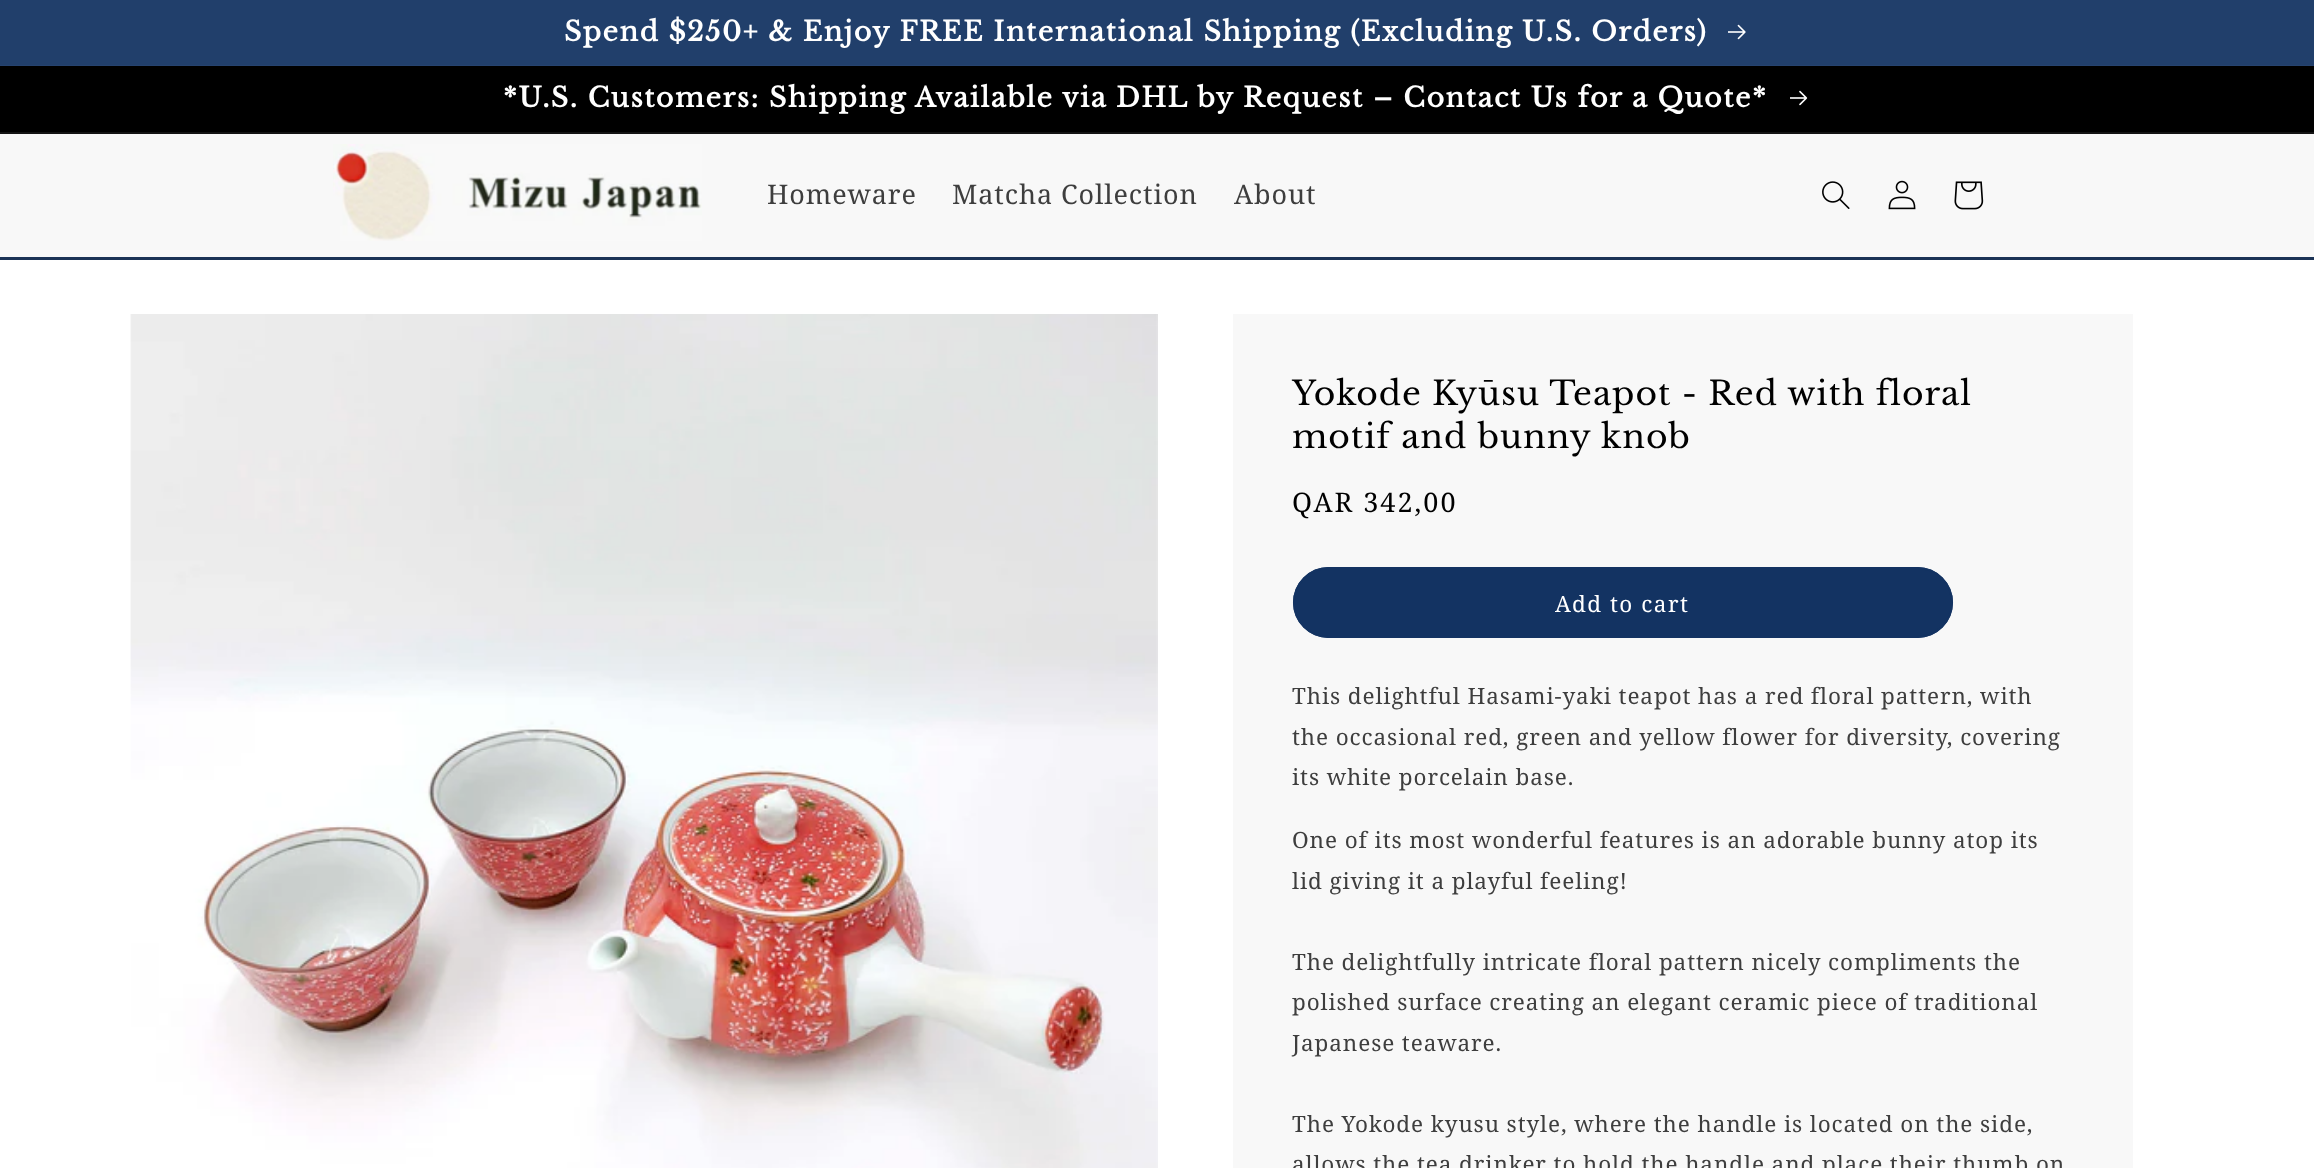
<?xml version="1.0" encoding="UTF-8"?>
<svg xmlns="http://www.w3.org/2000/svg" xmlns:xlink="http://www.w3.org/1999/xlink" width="2314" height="1168">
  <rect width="100%" height="100%" fill="#ffffff" />
  <rect y="65" width="2314" height="1" fill="#26436f" />
  <rect width="2314" height="65" fill="#213f6b" />
  <image x="1728" y="24" width="18" height="16" xlink:href="image1.png" />
  <rect y="66" width="2314" height="66" fill="#000000" />
  <rect y="132" width="2314" height="2" fill="#141414" />
  <image x="1790" y="90" width="18" height="16" xlink:href="image2.png" />
  <rect y="134" width="2314" height="123" fill="#f8f8f8" />
  <rect y="257" width="2314" height="3" fill="#1b3356" />
  <image x="333" y="144" width="369" height="97" xlink:href="image3.png" />
  <image x="1822" y="181" width="28" height="28" xlink:href="image4.png" />
  <image x="1888" y="180" width="28" height="30" xlink:href="image5.png" />
  <image x="1954" y="181" width="30" height="29" xlink:href="image6.png" />
  <image x="130" y="314" width="1028" height="854" xlink:href="image7.png" />
  <rect x="1233" y="314" width="900" height="854" fill="#f8f8f8" />
  <rect x="1293" y="567" width="660" height="71" rx="35.5" fill="#133362" />
  <rect x="1294" y="568" width="658" height="69" rx="34.5" fill="none" stroke="#133362" stroke-width="2" />
  <text x="564" y="41" style="font-family: Libre Baskerville; font-size: 27px; font-weight: bold; letter-spacing: 1.5px; fill: #ffffff">Spend $250+ &amp; Enjoy FREE International Shipping (Excluding U.S. Orders)</text>
  <text x="503" y="107" style="font-family: Libre Baskerville; font-size: 27px; font-weight: bold; letter-spacing: 1.5px; fill: #ffffff">*U.S. Customers: Shipping Available via DHL by Request – Contact Us for a Quote*</text>
  <text x="767" y="204" style="font-family: Noto Serif; font-size: 27px; letter-spacing: 0.9px; fill: #3e3e3e">Homeware</text>
  <text x="952" y="204" style="font-family: Noto Serif; font-size: 27px; letter-spacing: 0.9px; fill: #3e3e3e">Matcha Collection</text>
  <text x="1234" y="204" style="font-family: Noto Serif; font-size: 27px; letter-spacing: 0.9px; fill: #3e3e3e">About</text>
  <text x="1292" y="405" style="font-family: Libre Baskerville; font-size: 33px; letter-spacing: 0.9px; fill: #000000">Yokode Kyūsu Teapot - Red with floral</text>
  <text x="1292" y="448" style="font-family: Libre Baskerville; font-size: 33px; letter-spacing: 0.9px; fill: #000000">motif and bunny knob</text>
  <text x="1292" y="512" style="font-family: Noto Serif; font-size: 27px; letter-spacing: 2px; fill: #000000">QAR 342,00</text>
  <text x="1555" y="612" style="font-family: Noto Serif; font-size: 22.5px; letter-spacing: 1.5px; fill: #ffffff">Add to cart</text>
  <text x="1292" y="704" style="font-family: Noto Serif; font-size: 22.5px; letter-spacing: 0.9px; fill: #3e3e3e">This delightful Hasami-yaki teapot has a red floral pattern, with</text>
  <text x="1292" y="745" style="font-family: Noto Serif; font-size: 22.5px; letter-spacing: 0.9px; fill: #3e3e3e">the occasional red, green and yellow flower for diversity, covering</text>
  <text x="1292" y="785" style="font-family: Noto Serif; font-size: 22.5px; letter-spacing: 0.9px; fill: #3e3e3e">its white porcelain base.</text>
  <text x="1292" y="848" style="font-family: Noto Serif; font-size: 22.5px; letter-spacing: 0.9px; fill: #3e3e3e">One of its most wonderful features is an adorable bunny atop its</text>
  <text x="1292" y="889" style="font-family: Noto Serif; font-size: 22.5px; letter-spacing: 0.9px; fill: #3e3e3e">lid giving it a playful feeling!</text>
  <text x="1292" y="970" style="font-family: Noto Serif; font-size: 22.5px; letter-spacing: 0.9px; fill: #3e3e3e">The delightfully intricate floral pattern nicely compliments the</text>
  <text x="1292" y="1010" style="font-family: Noto Serif; font-size: 22.5px; letter-spacing: 0.9px; fill: #3e3e3e">polished surface creating an elegant ceramic piece of traditional</text>
  <text x="1292" y="1051" style="font-family: Noto Serif; font-size: 22.5px; letter-spacing: 0.9px; fill: #3e3e3e">Japanese teaware.</text>
  <text x="1292" y="1132" style="font-family: Noto Serif; font-size: 22.5px; letter-spacing: 0.9px; fill: #3e3e3e">The Yokode kyusu style, where the handle is located on the side,</text>
  <text x="1292" y="1172" style="font-family: Noto Serif; font-size: 22.5px; letter-spacing: 0.9px; fill: #3e3e3e">allows the tea drinker to hold the handle and place their thumb on</text>
</svg>
